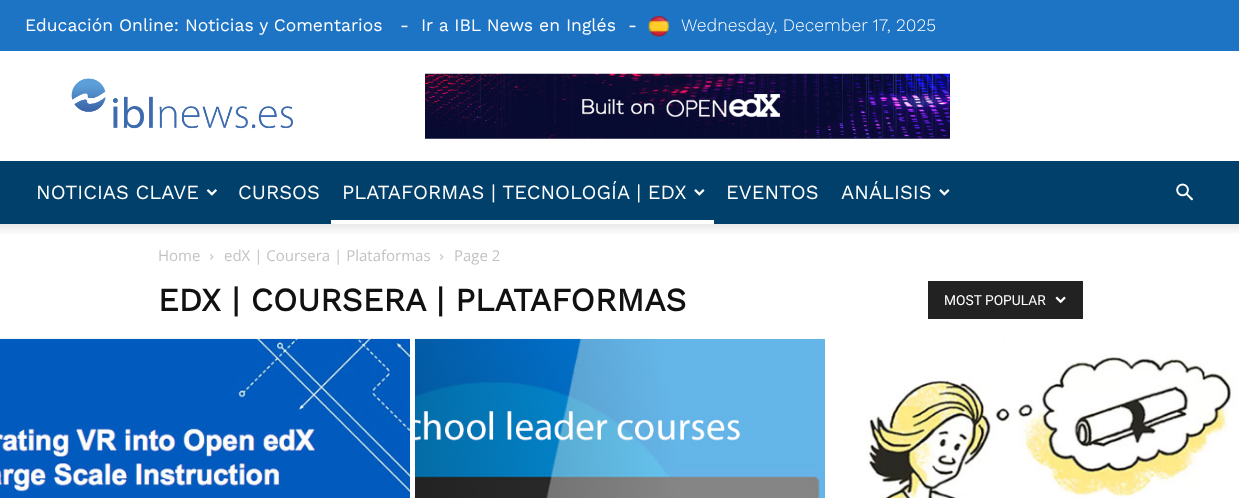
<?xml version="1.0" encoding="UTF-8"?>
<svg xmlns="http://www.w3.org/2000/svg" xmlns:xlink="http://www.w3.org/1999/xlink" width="1239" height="498">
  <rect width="100%" height="100%" fill="#ffffff" />
  <rect width="1239" height="51" fill="#1d73c4" />
  <image x="648" y="16" width="21" height="21" xlink:href="image1.png" />
  <image x="71" y="78" width="222" height="51" xlink:href="image2.png" />
  <image x="425" y="73" width="525" height="66" xlink:href="image3.png" />
  <rect y="161" width="1239" height="63" fill="#00406b" />
  <image x="206" y="189" width="11" height="7" xlink:href="image4.png" />
  <image x="694" y="189" width="11" height="7" xlink:href="image5.png" />
  <rect x="331" y="220" width="383" height="4" fill="#ffffff" />
  <image x="939" y="189" width="11" height="7" xlink:href="image5.png" />
  <image x="1176" y="183" width="17" height="18" xlink:href="image6.png" />
  <image x="0" y="224" width="1239" height="10" xlink:href="image7.png" />
  <image x="210" y="254" width="4" height="6" xlink:href="image8.png" />
  <image x="440" y="254" width="4" height="6" xlink:href="image8.png" />
  <rect x="928" y="281" width="155" height="38" fill="#222222" />
  <image x="1055" y="296" width="11" height="8" xlink:href="image9.png" />
  <image x="0" y="338" width="410" height="160" xlink:href="image10.png" />
  <image x="415" y="338" width="410" height="160" xlink:href="image11.png" />
  <image x="830" y="339" width="409" height="159" xlink:href="image12.png" />
  <text x="25" y="31" style="font-family: Work Sans; font-size: 17.5px; fill: #ffffff">Educación Online: Noticias y Comentarios</text>
  <text x="400" y="31" style="font-family: Work Sans; font-size: 17.5px; fill: #ffffff">-</text>
  <text x="421" y="31" style="font-family: Work Sans; font-size: 17.5px; fill: #ffffff">Ir a IBL News en Inglés</text>
  <text x="628" y="31" style="font-family: Work Sans; font-size: 17.5px; fill: #ffffff">-</text>
  <text x="681" y="31" style="font-family: Work Sans; font-size: 17.5px; font-weight: 300; fill: #ffffff">Wednesday, December 17, 2025</text>
  <text x="36" y="199" style="font-family: Work Sans; font-size: 20px; fill: #ffffff">NOTICIAS CLAVE</text>
  <text x="238" y="199" style="font-family: Work Sans; font-size: 20px; fill: #ffffff">CURSOS</text>
  <text x="342" y="199" style="font-family: Work Sans; font-size: 20px; fill: #ffffff">PLATAFORMAS | TECNOLOGÍA | EDX</text>
  <text x="726" y="199" style="font-family: Work Sans; font-size: 20px; fill: #ffffff">EVENTOS</text>
  <text x="841" y="199" style="font-family: Work Sans; font-size: 20px; fill: #ffffff">ANÁLISIS</text>
  <text x="158" y="261" style="font-family: Open Sans; font-size: 15px; fill: #c3c3c3">Home</text>
  <text x="224" y="261" style="font-family: Open Sans; font-size: 15px; fill: #c3c3c3">edX | Coursera | Plataformas</text>
  <text x="454" y="261" style="font-family: Open Sans; font-size: 15px; fill: #c3c3c3">Page 2</text>
  <text x="158" y="311" style="font-family: Work Sans; font-size: 32.5px; font-weight: bold; fill: #111111">EDX | COURSERA | PLATAFORMAS</text>
  <text x="944" y="305" style="font-family: Roboto; font-size: 13.75px; fill: #ffffff">MOST POPULAR</text>
</svg>
